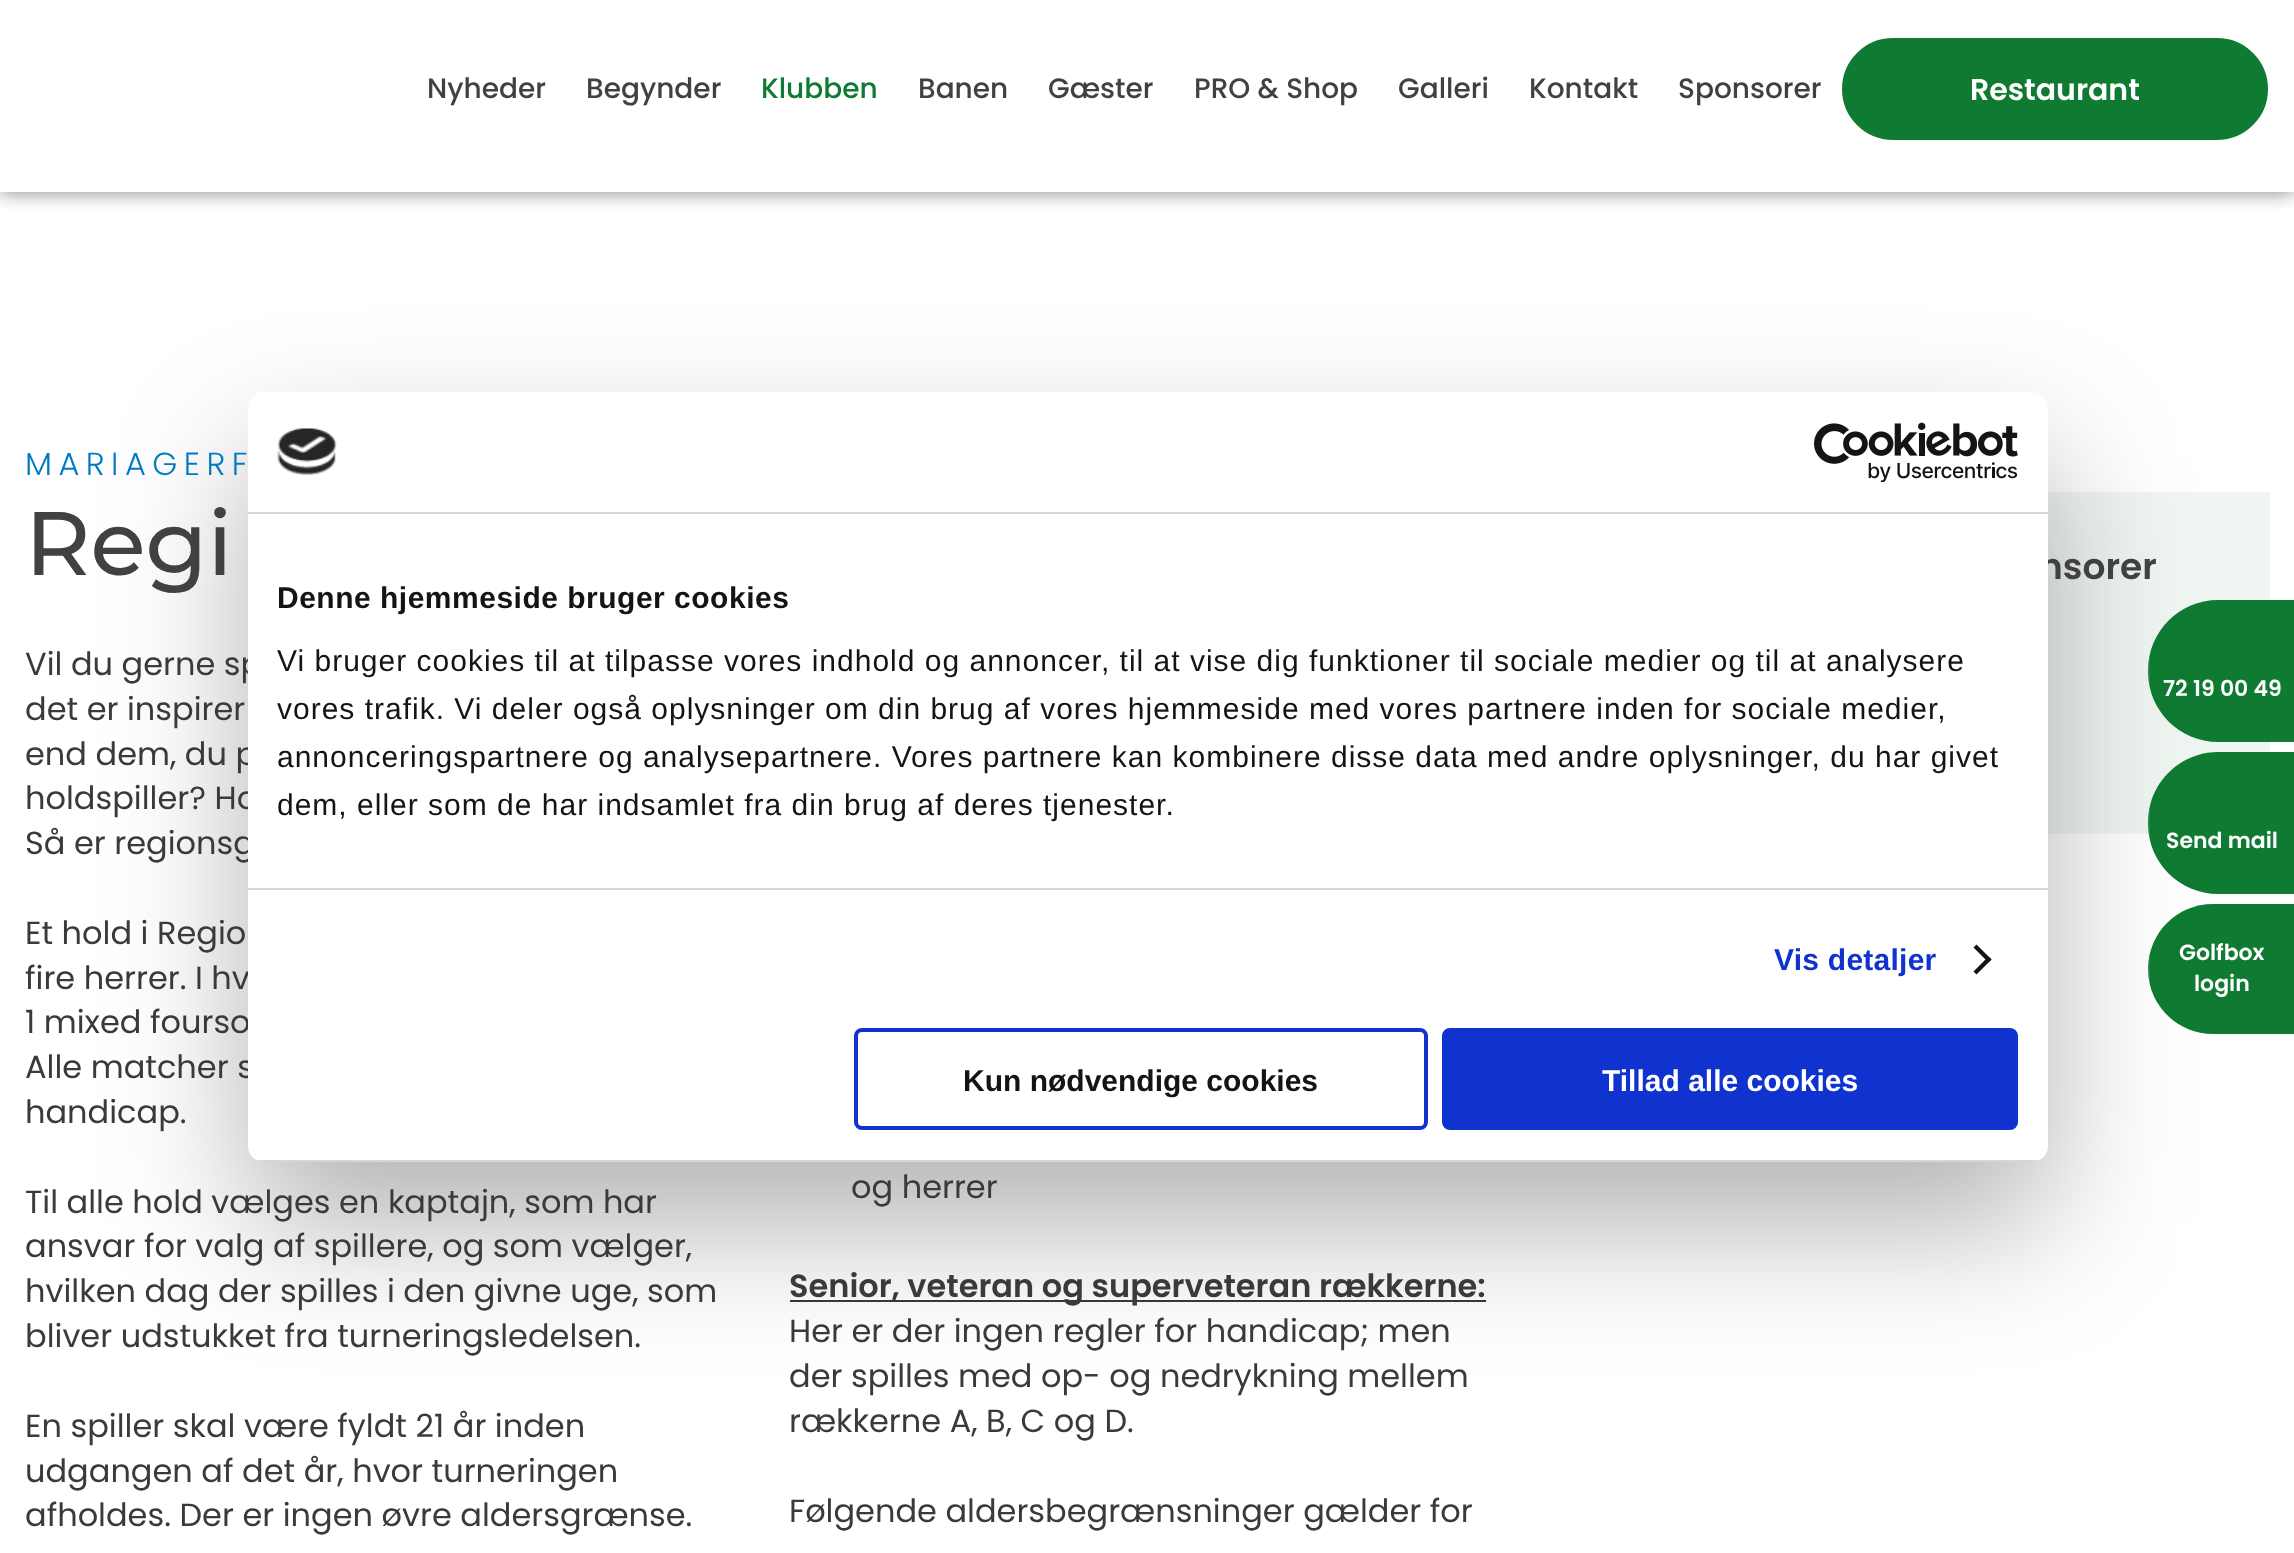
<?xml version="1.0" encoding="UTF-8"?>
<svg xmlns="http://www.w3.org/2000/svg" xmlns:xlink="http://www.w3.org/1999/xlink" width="2294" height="1553">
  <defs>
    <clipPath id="clip1"><rect x="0" y="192" width="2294" height="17" /></clipPath>
    <clipPath id="clip2"><rect x="248" y="392" width="1800" height="770" rx="16" /></clipPath>
  </defs>
  <rect width="100%" height="100%" fill="#ffffff" />
  <g clip-path="url(#clip1)">
    <rect width="2294" height="192" fill="#000000" fill-opacity="0.5" filter="blur(10px)" />
  </g>
  <rect x="1841" y="37" width="428" height="104" rx="52" fill="#0f7b32" stroke="#ffffff" stroke-width="2" />
  <rect x="790" y="1300" width="696" height="2" fill="#3a3a3a" />
  <rect x="2048" y="492" width="222" height="342" fill="#eff6f1" />
  <path d="M 2218 600 h 76 v 142 h -76 c -38.5 0 -70 -31.5 -70 -70 v -2 c 0 -38.5 31.5 -70 70 -70 z" fill="#0f7b32" />
  <rect x="2148" y="653" width="2" height="35" fill="#ffffff" fill-opacity="0.1" />
  <path d="M 2218 752 h 76 v 142 h -76 c -38.5 0 -70 -31.5 -70 -70 v -2 c 0 -38.5 31.5 -70 70 -70 z" fill="#0f7b32" />
  <rect x="2148" y="805" width="2" height="35" fill="#ffffff" fill-opacity="0.1" />
  <path d="M 2213 904 h 81 v 130 h -81 c -36 0 -65 -29 -65 -65 c 0 -36 29 -65 65 -65 z" fill="#0f7b32" />
  <rect x="2148" y="953" width="2" height="32" fill="#ffffff" fill-opacity="0.1" />
  <rect x="248" y="456" width="1800" height="770" rx="16" fill="#000000" fill-opacity="0.3" filter="blur(68px)" />
  <text x="427" y="98" style="font-family: Poppins; font-size: 28px; font-weight: 500; fill: #414141">Nyheder</text>
  <text x="586" y="98" style="font-family: Poppins; font-size: 28px; font-weight: 500; fill: #414141">Begynder</text>
  <text x="761" y="98" style="font-family: Poppins; font-size: 28px; font-weight: 500; fill: #0f7b32">Klubben</text>
  <text x="918" y="98" style="font-family: Poppins; font-size: 28px; font-weight: 500; fill: #414141">Banen</text>
  <text x="1048" y="98" style="font-family: Poppins; font-size: 28px; font-weight: 500; fill: #414141">Gæster</text>
  <text x="1194" y="98" style="font-family: Poppins; font-size: 28px; font-weight: 500; fill: #414141">PRO &amp; Shop</text>
  <text x="1398" y="98" style="font-family: Poppins; font-size: 28px; font-weight: 500; fill: #414141">Galleri</text>
  <text x="1529" y="98" style="font-family: Poppins; font-size: 28px; font-weight: 500; fill: #414141">Kontakt</text>
  <text x="1678" y="98" style="font-family: Poppins; font-size: 28px; font-weight: 500; fill: #414141">Sponsorer</text>
  <text x="1970" y="100" style="font-family: Poppins; font-size: 30px; font-weight: 600; fill: #ffffff">Restaurant</text>
  <text x="25" y="475" style="font-family: Poppins; font-size: 32px; font-weight: 300; letter-spacing: 6.5px; fill: #0179c4">MARIAGERF</text>
  <text x="25" y="575" style="font-family: Montserrat; font-size: 90px; font-weight: 500; fill: #414141">Regi</text>
  <text x="25" y="675" style="font-family: Poppins; font-size: 32px; fill: #3a3a3a">Vil du gerne sp</text>
  <text x="25" y="720" style="font-family: Poppins; font-size: 32px; fill: #3a3a3a">det er inspirer</text>
  <text x="25" y="765" style="font-family: Poppins; font-size: 32px; fill: #3a3a3a">end dem, du p</text>
  <text x="25" y="809" style="font-family: Poppins; font-size: 32px; fill: #3a3a3a">holdspiller? Ho</text>
  <text x="25" y="854" style="font-family: Poppins; font-size: 32px; fill: #3a3a3a">Så er regionsg</text>
  <text x="25" y="944" style="font-family: Poppins; font-size: 32px; fill: #3a3a3a">Et hold i Regio</text>
  <text x="25" y="989" style="font-family: Poppins; font-size: 32px; fill: #3a3a3a">fire herrer. I hv</text>
  <text x="25" y="1033" style="font-family: Poppins; font-size: 32px; fill: #3a3a3a">1 mixed fourso</text>
  <text x="25" y="1078" style="font-family: Poppins; font-size: 32px; fill: #3a3a3a">Alle matcher s</text>
  <text x="25" y="1123" style="font-family: Poppins; font-size: 32px; fill: #3a3a3a">handicap.</text>
  <text x="25" y="1213" style="font-family: Poppins; font-size: 32px; fill: #3a3a3a">Til alle hold vælges en kaptajn, som har</text>
  <text x="25" y="1257" style="font-family: Poppins; font-size: 32px; fill: #3a3a3a">ansvar for valg af spillere, og som vælger,</text>
  <text x="25" y="1302" style="font-family: Poppins; font-size: 32px; fill: #3a3a3a">hvilken dag der spilles i den givne uge, som</text>
  <text x="25" y="1347" style="font-family: Poppins; font-size: 32px; fill: #3a3a3a">bliver udstukket fra turneringsledelsen.</text>
  <text x="25" y="1437" style="font-family: Poppins; font-size: 32px; fill: #3a3a3a">En spiller skal være fyldt 21 år inden</text>
  <text x="25" y="1482" style="font-family: Poppins; font-size: 32px; fill: #3a3a3a">udgangen af det år, hvor turneringen</text>
  <text x="25" y="1526" style="font-family: Poppins; font-size: 32px; fill: #3a3a3a">afholdes. Der er ingen øvre aldersgrænse.</text>
  <text x="851" y="1198" style="font-family: Poppins; font-size: 32px; fill: #3a3a3a">og herrer</text>
  <text x="789" y="1297" style="font-family: Poppins; font-size: 32px; font-weight: 600; fill: #3a3a3a">Senior, veteran og superveteran rækkerne:</text>
  <text x="789" y="1342" style="font-family: Poppins; font-size: 32px; fill: #3a3a3a">Her er der ingen regler for handicap; men</text>
  <text x="789" y="1387" style="font-family: Poppins; font-size: 32px; fill: #3a3a3a">der spilles med op- og nedrykning mellem</text>
  <text x="789" y="1432" style="font-family: Poppins; font-size: 32px; fill: #3a3a3a">rækkerne A, B, C og D.</text>
  <text x="789" y="1522" style="font-family: Poppins; font-size: 32px; fill: #3a3a3a">Følgende aldersbegrænsninger gælder for</text>
  <text x="2039" y="579" style="font-family: Poppins; font-size: 36px; font-weight: 600; fill: #414141">nsorer</text>
  <text x="2163" y="696" style="font-family: Poppins; font-size: 22px; font-weight: 600; fill: #ffffff">72 19 00 49</text>
  <text x="2166" y="848" style="font-family: Poppins; font-size: 22px; font-weight: 600; fill: #ffffff">Send mail</text>
  <text x="2179" y="960" style="font-family: Poppins; font-size: 22px; font-weight: 600; fill: #ffffff">Golfbox</text>
  <text x="2194" y="991" style="font-family: Poppins; font-size: 22px; font-weight: 600; fill: #ffffff">login</text>
  <rect x="248" y="392" width="1800" height="770" rx="16" fill="#ffffff" />
  <rect x="248" y="512" width="1800" height="2" fill="#d6d6d6" />
  <image x="277" y="428" width="60" height="47" xlink:href="image1.png" />
  <image x="1814" y="422" width="204" height="60" xlink:href="image2.png" />
  <rect x="248" y="888" width="1800" height="2" fill="#d6d6d6" />
  <text x="277" y="608" style="font-family: Liberation Sans; font-size: 30px; font-weight: bold; letter-spacing: 0.5px; fill: #141414">Denne hjemmeside bruger cookies</text>
  <text x="277" y="671" style="font-family: Liberation Sans; font-size: 30px; letter-spacing: 1px; fill: #141414">Vi bruger cookies til at tilpasse vores indhold og annoncer, til at vise dig funktioner til sociale medier og til at analysere</text>
  <text x="277" y="719" style="font-family: Liberation Sans; font-size: 30px; letter-spacing: 1px; fill: #141414">vores trafik. Vi deler også oplysninger om din brug af vores hjemmeside med vores partnere inden for sociale medier,</text>
  <text x="277" y="767" style="font-family: Liberation Sans; font-size: 30px; letter-spacing: 1px; fill: #141414">annonceringspartnere og analysepartnere. Vores partnere kan kombinere disse data med andre oplysninger, du har givet</text>
  <text x="277" y="815" style="font-family: Liberation Sans; font-size: 30px; letter-spacing: 1px; fill: #141414">dem, eller som de har indsamlet fra din brug af deres tjenester.</text>
  <text x="1774" y="970" style="font-family: Liberation Sans; font-size: 30px; font-weight: bold; letter-spacing: 0.25px; fill: #1032cf">Vis detaljer</text>
  <path d="M 1976.5 944.5 l 15 15 l -3 3 l -15 -15 z" fill="#141414" />
  <path d="M 1988.5 956.5 l 3 3 l -15 15 l -3 -3 z" fill="#141414" />
  <g clip-path="url(#clip2)">
    <rect x="248" y="1160" width="1800" height="2" fill="#d6d6d6" />
  </g>
  <rect x="856" y="1030" width="570" height="98" rx="6" fill="none" stroke="#1032cf" stroke-width="4" />
  <text x="963" y="1091" style="font-family: Liberation Sans; font-size: 30px; font-weight: bold; fill: #141414">Kun nødvendige cookies</text>
  <rect x="1444" y="1030" width="572" height="98" rx="6" fill="#1032cf" stroke="#1032cf" stroke-width="4" />
  <text x="1602" y="1091" style="font-family: Liberation Sans; font-size: 30px; font-weight: bold; fill: #ffffff">Tillad alle cookies</text>
</svg>
